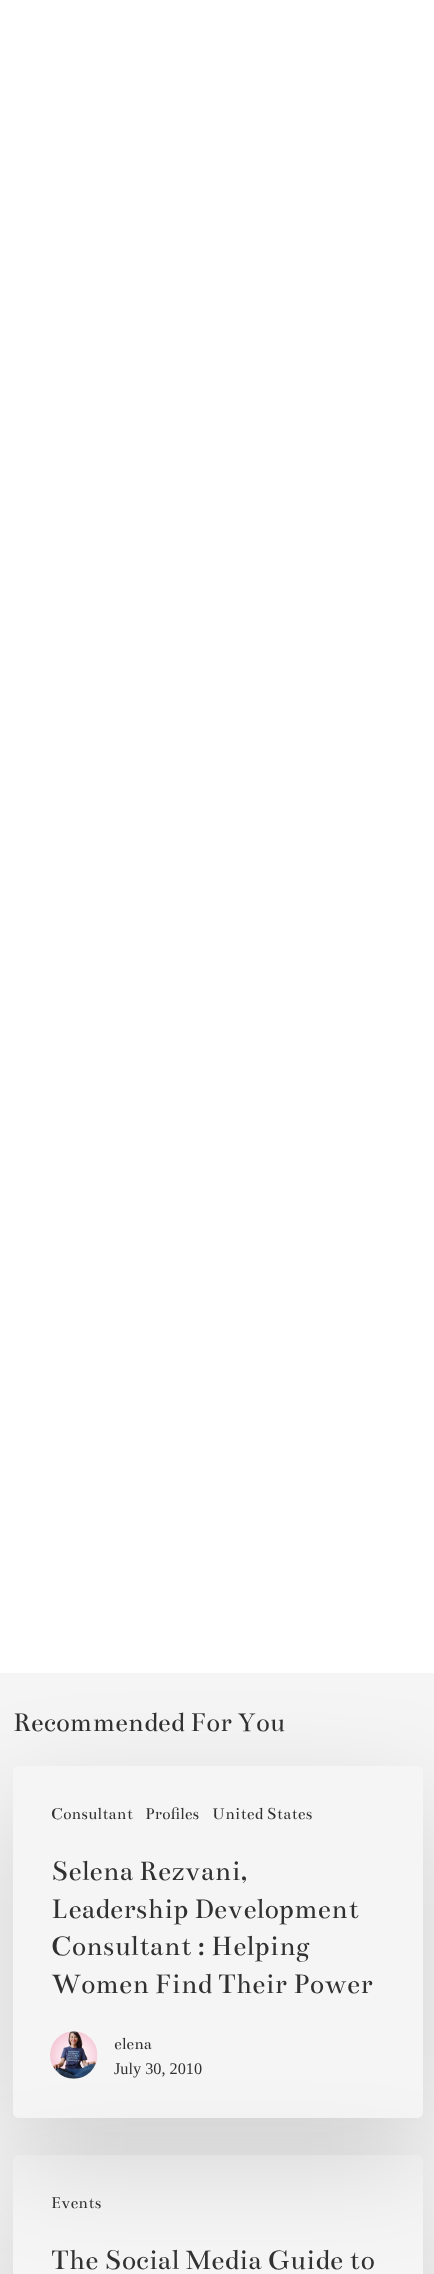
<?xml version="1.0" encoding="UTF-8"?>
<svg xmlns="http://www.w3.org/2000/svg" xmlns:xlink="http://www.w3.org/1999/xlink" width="434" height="2274">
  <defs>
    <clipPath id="clip1"><path d="M 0 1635 h 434 v 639 h -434 z m 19 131 h 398 c 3.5 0 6 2.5 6 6 v 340 c 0 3.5 -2.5 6 -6 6 h -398 c -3.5 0 -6 -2.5 -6 -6 v -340 c 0 -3.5 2.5 -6 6 -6 z" clip-rule="evenodd" /></clipPath>
    <clipPath id="clip2"><path d="M 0 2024 h 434 v 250 h -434 z m 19 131 h 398 c 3.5 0 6 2.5 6 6 v 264 c 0 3.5 -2.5 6 -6 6 h -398 c -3.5 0 -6 -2.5 -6 -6 v -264 c 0 -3.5 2.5 -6 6 -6 z" clip-rule="evenodd" /></clipPath>
  </defs>
  <rect width="100%" height="100%" fill="#ffffff" />
  <rect y="1673" width="434" height="601" fill="#f5f5f5" />
  <g clip-path="url(#clip1)">
    <rect x="13" y="1804" width="410" height="351" rx="6" fill="#000000" fill-opacity="0.14" filter="blur(56px)" />
  </g>
  <image x="50" y="2031" width="48" height="48" xlink:href="image1.png" />
  <g clip-path="url(#clip2)">
    <rect x="13" y="2193" width="410" height="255" rx="6" fill="#000000" fill-opacity="0.14" filter="blur(56px)" />
  </g>
  <text x="13" y="1731" style="font-family: Bentham; font-size: 28.75px; fill: #313131">Recommended For You</text>
  <text x="51" y="1819" style="font-family: Bentham; font-size: 17.5px; fill: #313131">Consultant</text>
  <text x="145" y="1819" style="font-family: Bentham; font-size: 17.5px; fill: #313131">Profiles</text>
  <text x="212" y="1819" style="font-family: Bentham; font-size: 17.5px; fill: #313131">United States</text>
  <text x="51" y="1880" style="font-family: Bentham; font-size: 30px; fill: #313131">Selena Rezvani,</text>
  <text x="51" y="1918" style="font-family: Bentham; font-size: 30px; fill: #313131">Leadership Development</text>
  <text x="51" y="1955" style="font-family: Bentham; font-size: 30px; fill: #313131">Consultant : Helping</text>
  <text x="51" y="1993" style="font-family: Bentham; font-size: 30px; fill: #313131">Women Find Their Power</text>
  <text x="114" y="2049" style="font-family: Bentham; font-size: 17.5px; fill: #313131">elena</text>
  <text x="114" y="2074" style="font-family: Liberation Serif; font-size: 16.25px; fill: #313131">July 30, 2010</text>
  <text x="51" y="2208" style="font-family: Bentham; font-size: 17.5px; fill: #313131">Events</text>
  <text x="51" y="2269" style="font-family: Bentham; font-size: 30px; fill: #313131">The Social Media Guide to</text>
</svg>
